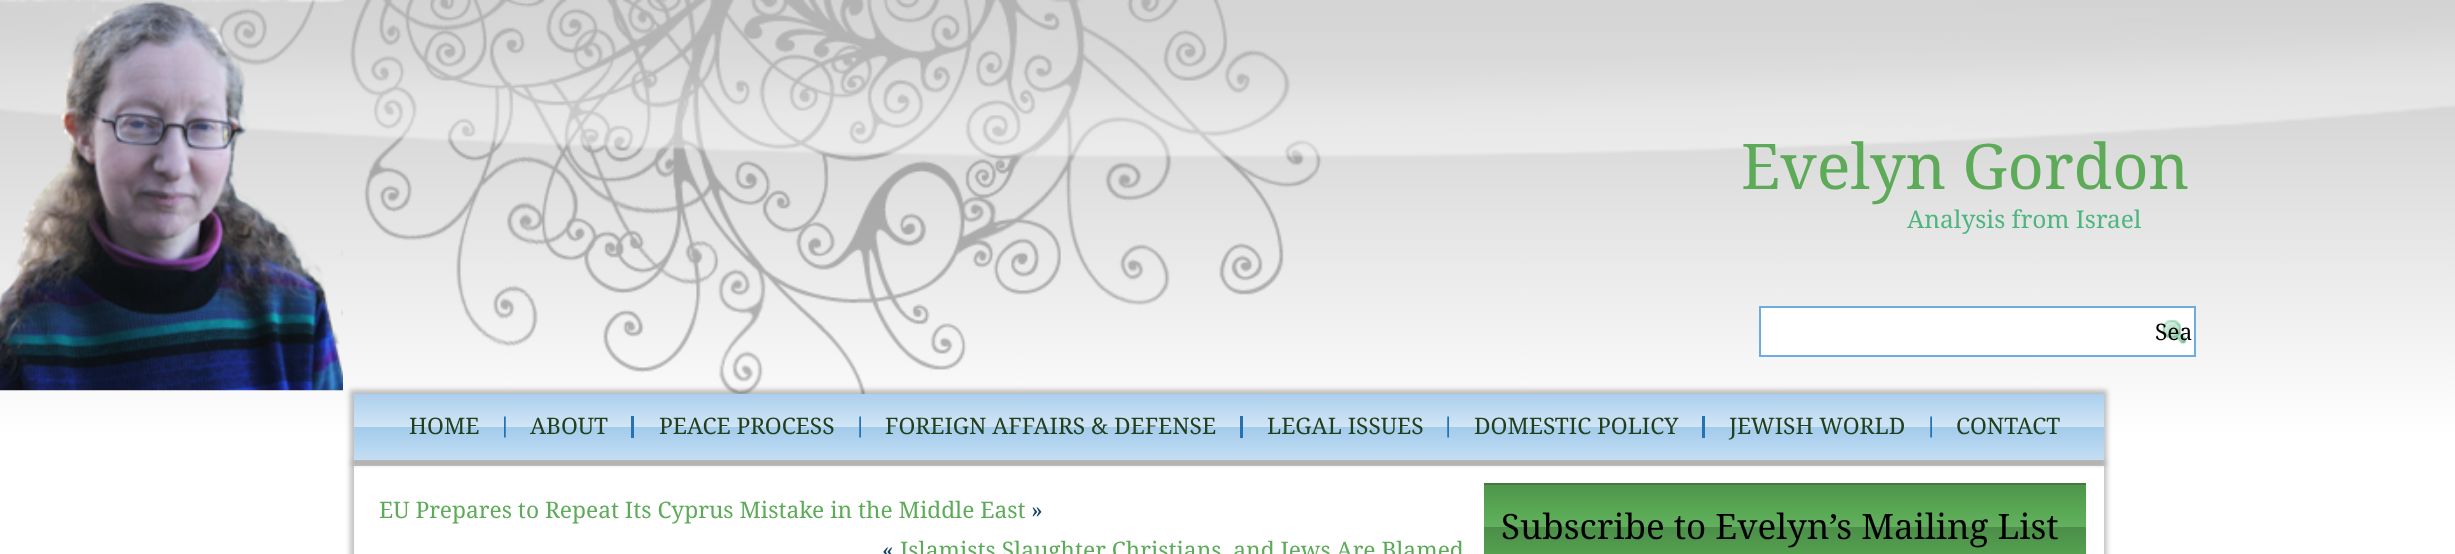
<?xml version="1.0" encoding="UTF-8"?>
<svg xmlns="http://www.w3.org/2000/svg" xmlns:xlink="http://www.w3.org/1999/xlink" width="2455" height="554">
  <defs>
    <clipPath id="clip1"><path d="M 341 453 h 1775 v 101 h -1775 z m 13 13 h 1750 v 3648 h -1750 z" clip-rule="evenodd" /></clipPath>
    <linearGradient id="g1" gradientUnits="userSpaceOnUse" x1="1229" y1="394" x2="1229" y2="460"><stop offset="0" stop-color="#abcfed" /><stop offset="0.5" stop-color="#d1e5f5" /><stop offset="0.5" stop-color="#a2cbeb" /><stop offset="1" stop-color="#c4def3" /></linearGradient>
    <linearGradient id="g2" gradientUnits="userSpaceOnUse" x1="1785" y1="485" x2="1785" y2="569"><stop offset="0" stop-color="#4f954b" /><stop offset="0.33" stop-color="#5aaa55" /><stop offset="0.5" stop-color="#64af60" /><stop offset="0.5" stop-color="#5aaa55" /><stop offset="0.5" stop-color="#4b8e48" /><stop offset="1" stop-color="#5aaa55" /></linearGradient>
  </defs>
  <rect width="100%" height="100%" fill="#ffffff" />
  <image x="0" y="0" width="2455" height="456" xlink:href="image1.png" />
  <image x="0" y="0" width="2455" height="158" xlink:href="image2.png" />
  <image x="0" y="0" width="343" height="391" xlink:href="image3.png" />
  <rect x="1760" y="307" width="435" height="49" fill="#ffffff" stroke="#6cace0" stroke-width="2" />
  <image x="2162" y="319" width="25" height="26" xlink:href="image4.png" />
  <g clip-path="url(#clip1)">
    <rect x="350" y="462" width="1757" height="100" fill="#000000" fill-opacity="0.24" filter="blur(2.5px)" />
  </g>
  <rect x="2103" y="466" width="1" height="88" fill="#ffffff" fill-opacity="0.98" />
  <rect x="350" y="390" width="1757" height="74" fill="#000000" fill-opacity="0.25" filter="blur(2.5px)" />
  <rect x="354" y="394" width="1750" height="66" fill="url(#g1)" />
  <image x="504" y="416" width="2" height="22" xlink:href="image5.png" />
  <rect x="631" y="416" width="3" height="22" fill="#2572b1" />
  <image x="859" y="416" width="2" height="22" xlink:href="image6.png" />
  <rect x="1240" y="416" width="3" height="22" fill="#2572b1" />
  <image x="1447" y="416" width="2" height="22" xlink:href="image6.png" />
  <rect x="1702" y="416" width="3" height="22" fill="#2572b1" />
  <image x="1930" y="416" width="2" height="22" xlink:href="image6.png" />
  <rect x="1484" y="485" width="602" height="69" fill="url(#g2)" />
  <rect x="1484" y="483" width="602" height="2" fill="#417a3e" />
  <text x="1741" y="189" style="font-family: Droid Serif; font-size: 63px; fill: #5dab59">Evelyn Gordon</text>
  <text x="1907" y="228" style="font-family: Droid Serif; font-size: 24.5px; fill: #4fb57f">Analysis from Israel</text>
  <text x="2155" y="340" style="font-family: Droid Serif; font-size: 22.75px; fill: #000000">Sea</text>
  <text x="409" y="434" style="font-family: Droid Serif; font-size: 22.75px; fill: #224020">HOME</text>
  <text x="530" y="434" style="font-family: Droid Serif; font-size: 22.75px; fill: #224020">ABOUT</text>
  <text x="659" y="434" style="font-family: Droid Serif; font-size: 22.75px; fill: #224020">PEACE PROCESS</text>
  <text x="885" y="434" style="font-family: Droid Serif; font-size: 22.75px; fill: #224020">FOREIGN AFFAIRS &amp; DEFENSE</text>
  <text x="1267" y="434" style="font-family: Droid Serif; font-size: 22.75px; fill: #224020">LEGAL ISSUES</text>
  <text x="1474" y="434" style="font-family: Droid Serif; font-size: 22.75px; fill: #224020">DOMESTIC POLICY</text>
  <text x="1729" y="434" style="font-family: Droid Serif; font-size: 22.75px; fill: #224020">JEWISH WORLD</text>
  <text x="1956" y="434" style="font-family: Droid Serif; font-size: 22.75px; fill: #224020">CONTACT</text>
  <text x="379" y="518" style="font-family: Droid Serif; font-size: 22.75px; fill: #5dab59">EU Prepares to Repeat Its Cyprus Mistake in the Middle East</text>
  <text x="1031" y="518" style="font-family: Droid Serif; font-size: 22.75px; fill: #164469">»</text>
  <text x="882" y="558" style="font-family: Droid Serif; font-size: 22.75px; fill: #164469">«</text>
  <text x="900" y="558" style="font-family: Droid Serif; font-size: 22.75px; fill: #5dab59">Islamists Slaughter Christians, and Jews Are Blamed</text>
  <text x="1501" y="539" style="font-family: Droid Serif; font-size: 35px; fill: #000000">Subscribe to Evelyn’s Mailing List</text>
</svg>
